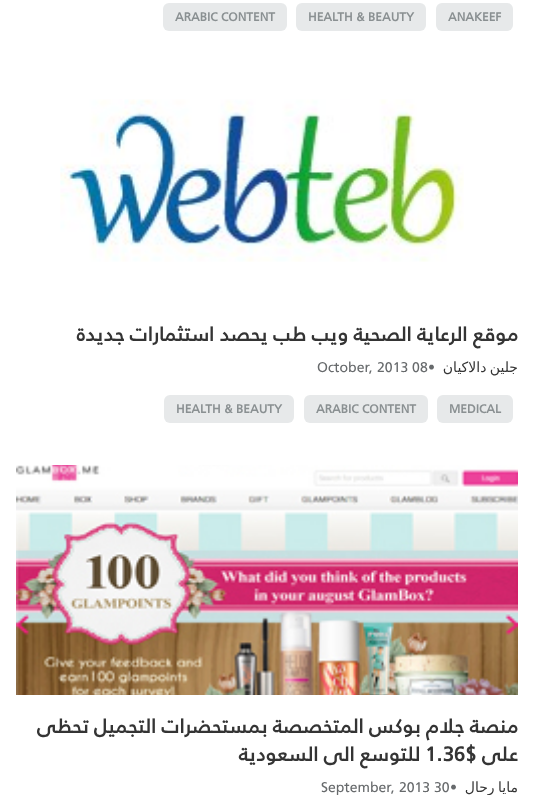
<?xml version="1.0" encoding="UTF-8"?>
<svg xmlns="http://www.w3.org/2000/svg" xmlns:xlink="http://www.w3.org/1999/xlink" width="534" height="795">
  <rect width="100%" height="100%" fill="#ffffff" />
  <rect x="436" y="3" width="77" height="28" rx="6" fill="#e7e9ea" />
  <rect x="296" y="3" width="130" height="28" rx="6" fill="#e7e9ea" />
  <rect x="163" y="3" width="124" height="28" rx="6" fill="#e7e9ea" />
  <image x="60" y="99" width="404" height="163" xlink:href="image1.png" />
  <rect x="437" y="395" width="76" height="28" rx="6" fill="#e7e9ea" />
  <rect x="304" y="395" width="124" height="28" rx="6" fill="#e7e9ea" />
  <rect x="164" y="395" width="130" height="28" rx="6" fill="#e7e9ea" />
  <image x="16" y="465" width="502" height="230" xlink:href="image2.png" />
  <text x="448" y="21" style="font-family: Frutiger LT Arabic; font-size: 12px; font-weight: bold; fill: #8a9092">ANAKEEF</text>
  <text x="308" y="21" style="font-family: Frutiger LT Arabic; font-size: 12px; font-weight: bold; fill: #8a9092">HEALTH &amp; BEAUTY</text>
  <text x="175" y="21" style="font-family: Frutiger LT Arabic; font-size: 12px; font-weight: bold; fill: #8a9092">ARABIC CONTENT</text>
  <text x="518" y="341" style="font-family: Frutiger LT Arabic; font-size: 20px; font-weight: bold; direction: rtl; fill: #343434">موقع الرعاية الصحية ويب طب يحصد استثمارات جديدة</text>
  <text x="518" y="372" word-spacing="-1" style="font-family: DejaVu Sans; font-size: 14px; direction: rtl; fill: #343434">جلين دالاكيان</text>
  <text x="428" y="372" style="font-family: Frutiger LT Arabic; font-size: 14px; fill: #676a6c">•</text>
  <text x="317" y="372" style="font-family: Frutiger LT Arabic; font-size: 14px; fill: #676a6c">October, 2013 08</text>
  <text x="449" y="413" style="font-family: Frutiger LT Arabic; font-size: 12px; font-weight: bold; fill: #8a9092">MEDICAL</text>
  <text x="316" y="413" style="font-family: Frutiger LT Arabic; font-size: 12px; font-weight: bold; fill: #8a9092">ARABIC CONTENT</text>
  <text x="176" y="413" style="font-family: Frutiger LT Arabic; font-size: 12px; font-weight: bold; fill: #8a9092">HEALTH &amp; BEAUTY</text>
  <text x="518" y="733" style="font-family: Frutiger LT Arabic; font-size: 20px; font-weight: bold; direction: rtl; fill: #343434">منصة جلام بوكس المتخصصة بمستحضرات التجميل تحظى</text>
  <text x="518" y="761" style="font-family: Frutiger LT Arabic; font-size: 20px; font-weight: bold; direction: rtl; fill: #343434">على $</text>
  <text x="425" y="761" style="font-family: Frutiger LT Arabic; font-size: 20px; font-weight: bold; fill: #343434">1.36</text>
  <text x="420" y="761" style="font-family: Frutiger LT Arabic; font-size: 20px; font-weight: bold; direction: rtl; fill: #343434">للتوسع الى السعودية</text>
  <text x="518" y="792" word-spacing="-1" style="font-family: DejaVu Sans; font-size: 14px; direction: rtl; fill: #343434">مايا رحال</text>
  <text x="450" y="792" style="font-family: Frutiger LT Arabic; font-size: 14px; fill: #676a6c">•</text>
  <text x="321" y="792" style="font-family: Frutiger LT Arabic; font-size: 14px; fill: #676a6c">September, 2013 30</text>
</svg>
